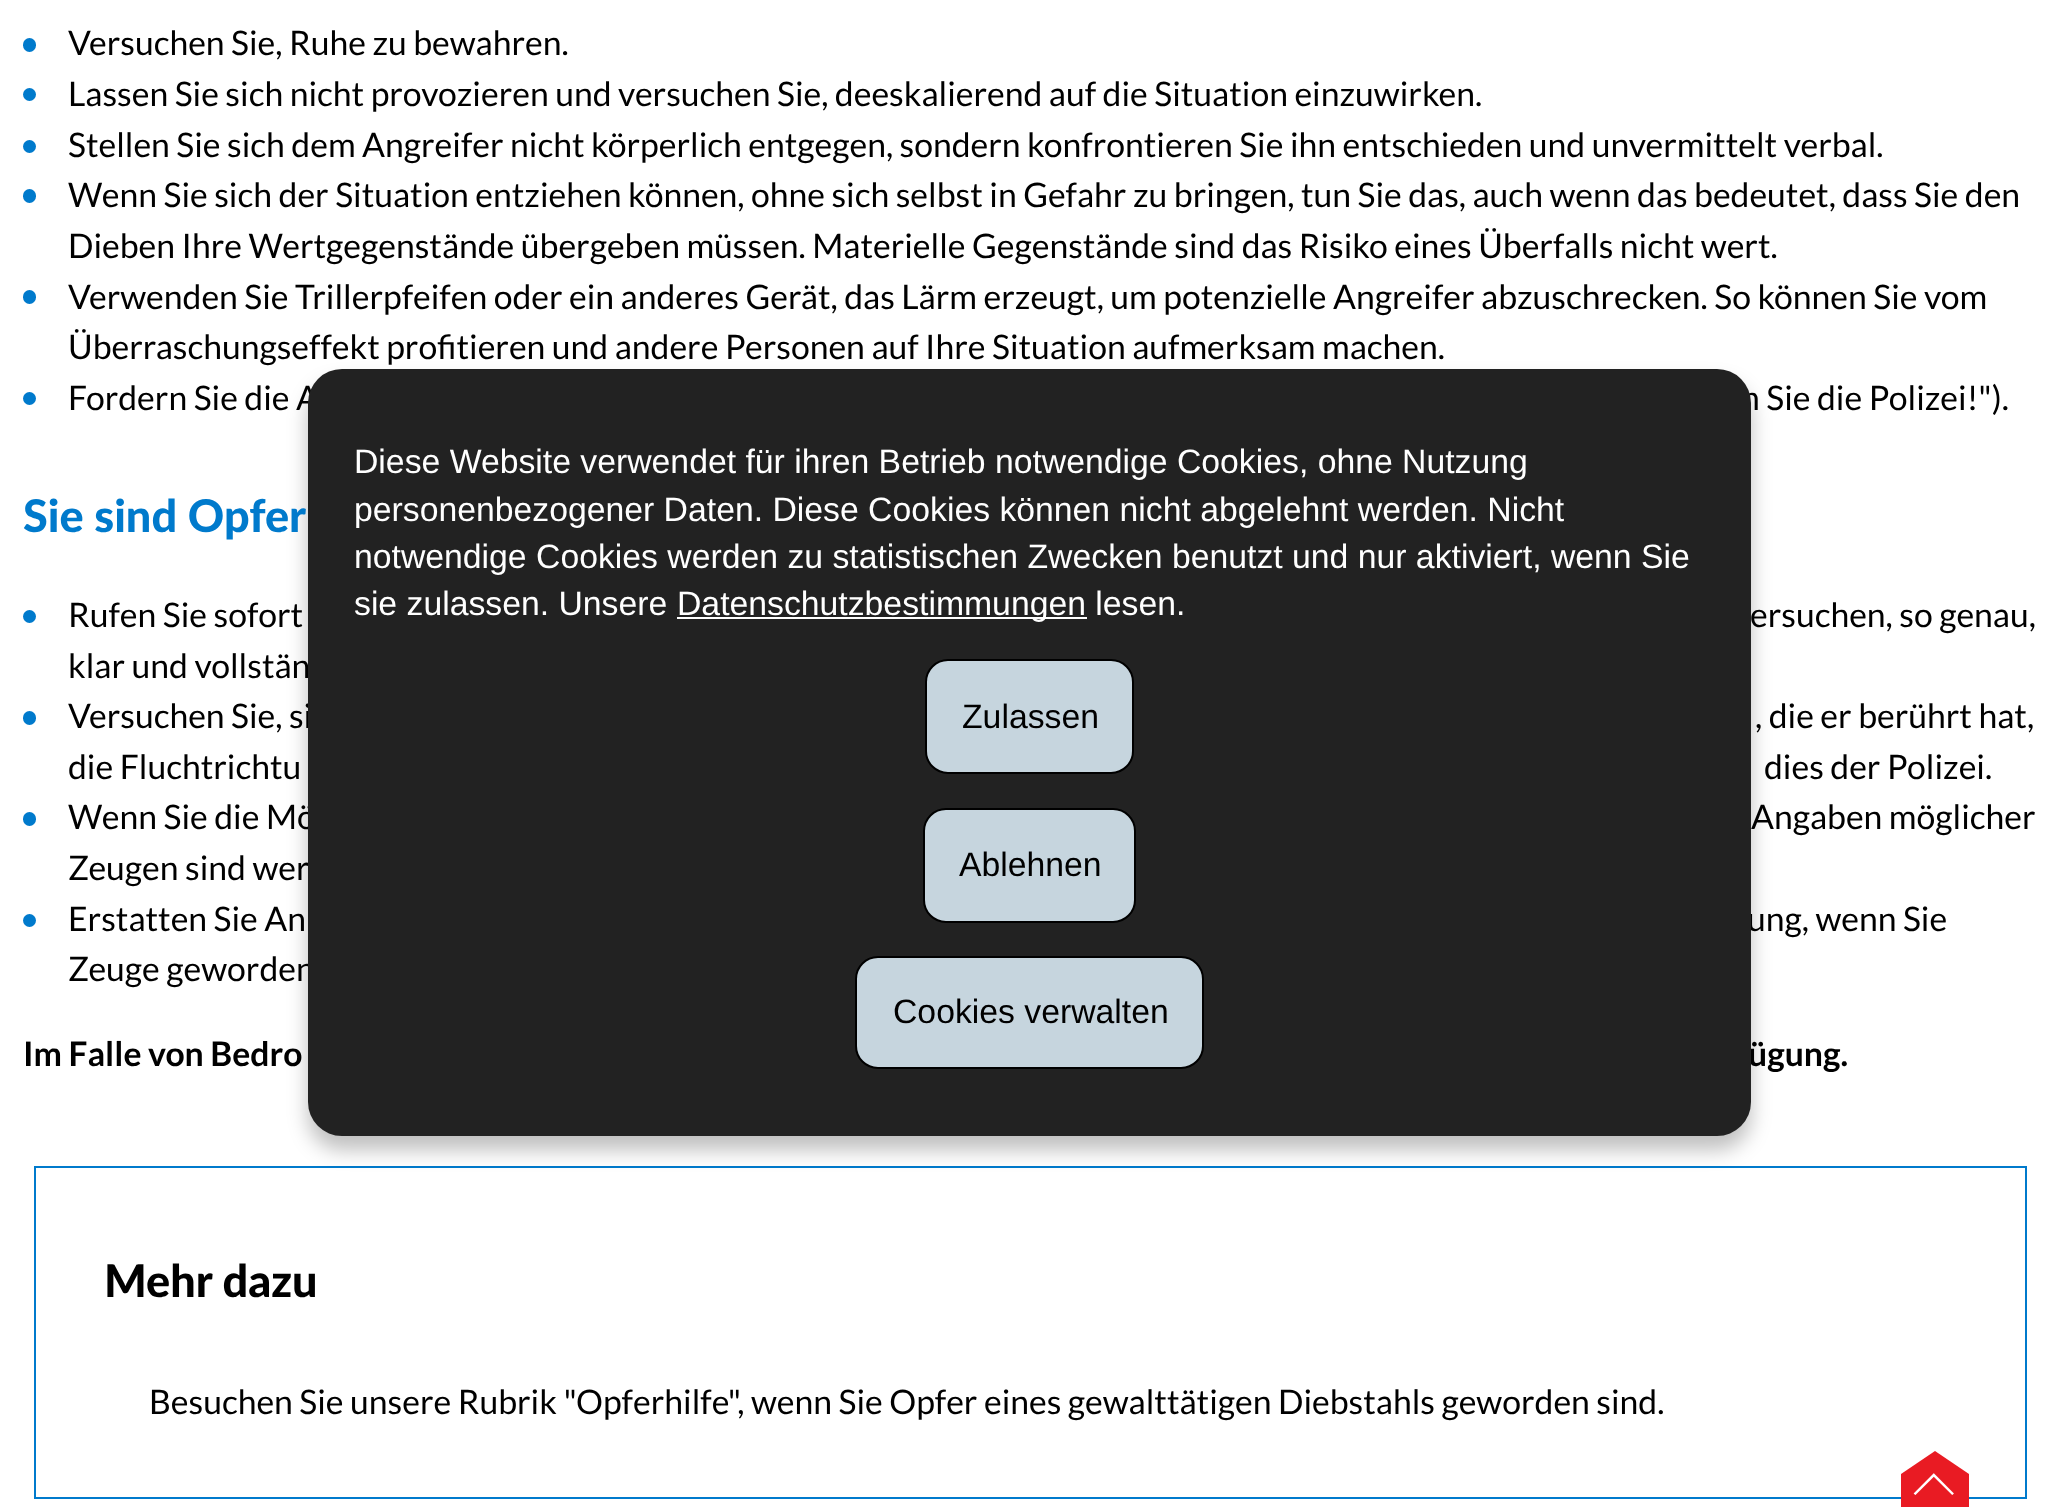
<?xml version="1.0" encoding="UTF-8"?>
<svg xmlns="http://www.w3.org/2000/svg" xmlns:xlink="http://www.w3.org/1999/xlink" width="2060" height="1507">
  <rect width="100%" height="100%" fill="#ffffff" />
  <rect x="23" y="38" width="13" height="14" rx="6.5" fill="#007acc" />
  <circle cx="29.5" cy="94.5" r="6.5" fill="#007acc" />
  <circle cx="29.5" cy="146.5" r="6.5" fill="#007acc" />
  <rect x="23" y="189" width="13" height="14" rx="6.5" fill="#007acc" />
  <rect x="23" y="290" width="13" height="14" rx="6.5" fill="#007acc" />
  <circle cx="29.5" cy="398.5" r="6.5" fill="#007acc" />
  <circle cx="29.5" cy="616.5" r="6.5" fill="#007acc" />
  <rect x="23" y="711" width="13" height="14" rx="6.5" fill="#007acc" />
  <rect x="23" y="812" width="13" height="14" rx="6.5" fill="#007acc" />
  <circle cx="29.5" cy="920.5" r="6.5" fill="#007acc" />
  <rect x="35" y="1167" width="1991" height="331" fill="none" stroke="#007acc" stroke-width="2" />
  <rect x="1901" y="1474" width="68" height="33" fill="#e91b23" />
  <path d="M 1969 1474 h -68 l 34 -23 z" fill="#e91b23" />
  <rect x="308" y="383" width="1443" height="767" rx="34" fill="#000000" fill-opacity="0.25" filter="blur(10px)" />
  <text x="68" y="55" style="font-family: Lato; font-size: 33.75px; fill: #000000">Versuchen Sie, Ruhe zu bewahren.</text>
  <text x="68" y="106" style="font-family: Lato; font-size: 33.75px; fill: #000000">Lassen Sie sich nicht provozieren und versuchen Sie, deeskalierend auf die Situation einzuwirken.</text>
  <text x="68" y="157" style="font-family: Lato; font-size: 33.75px; fill: #000000">Stellen Sie sich dem Angreifer nicht körperlich entgegen, sondern konfrontieren Sie ihn entschieden und unvermittelt verbal.</text>
  <text x="68" y="207" style="font-family: Lato; font-size: 33.75px; fill: #000000">Wenn Sie sich der Situation entziehen können, ohne sich selbst in Gefahr zu bringen, tun Sie das, auch wenn das bedeutet, dass Sie den</text>
  <text x="68" y="258" style="font-family: Lato; font-size: 33.75px; fill: #000000">Dieben Ihre Wertgegenstände übergeben müssen. Materielle Gegenstände sind das Risiko eines Überfalls nicht wert.</text>
  <text x="68" y="309" style="font-family: Lato; font-size: 33.75px; fill: #000000">Verwenden Sie Trillerpfeifen oder ein anderes Gerät, das Lärm erzeugt, um potenzielle Angreifer abzuschrecken. So können Sie vom</text>
  <text x="68" y="359" style="font-family: Lato; font-size: 33.75px; fill: #000000">Überraschungseffekt profitieren und andere Personen auf Ihre Situation aufmerksam machen.</text>
  <text x="68" y="410" style="font-family: Lato; font-size: 33.75px; fill: #000000">Fordern Sie die A</text>
  <text x="1741" y="410" style="font-family: Lato; font-size: 33.75px; fill: #000000">n Sie die Polizei!").</text>
  <text x="23" y="532" style="font-family: Lato; font-size: 45px; font-weight: 900; fill: #007acc">Sie sind Opfer</text>
  <text x="68" y="627" style="font-family: Lato; font-size: 33.75px; fill: #000000">Rufen Sie sofort</text>
  <text x="1750" y="627" style="font-family: Lato; font-size: 33.75px; fill: #000000">ersuchen, so genau,</text>
  <text x="68" y="678" style="font-family: Lato; font-size: 33.75px; fill: #000000">klar und vollstän</text>
  <text x="68" y="728" style="font-family: Lato; font-size: 33.75px; fill: #000000">Versuchen Sie, si</text>
  <text x="1755" y="728" style="font-family: Lato; font-size: 33.75px; fill: #000000">, die er berührt hat,</text>
  <text x="68" y="779" style="font-family: Lato; font-size: 33.75px; fill: #000000">die Fluchtrichtu</text>
  <text x="1764" y="779" style="font-family: Lato; font-size: 33.75px; fill: #000000">dies der Polizei.</text>
  <text x="68" y="829" style="font-family: Lato; font-size: 33.75px; fill: #000000">Wenn Sie die Mö</text>
  <text x="1751" y="829" style="font-family: Lato; font-size: 33.75px; fill: #000000">Angaben möglicher</text>
  <text x="68" y="880" style="font-family: Lato; font-size: 33.75px; fill: #000000">Zeugen sind wer</text>
  <text x="68" y="931" style="font-family: Lato; font-size: 33.75px; fill: #000000">Erstatten Sie An</text>
  <text x="1747" y="931" style="font-family: Lato; font-size: 33.75px; fill: #000000">ung, wenn Sie</text>
  <text x="68" y="981" style="font-family: Lato; font-size: 33.75px; fill: #000000">Zeuge geworden</text>
  <text x="23" y="1066" style="font-family: Lato; font-size: 33.75px; font-weight: bold; fill: #000000">Im Falle von Bedro</text>
  <text x="1748" y="1066" style="font-family: Lato; font-size: 33.75px; font-weight: bold; fill: #000000">ügung.</text>
  <text x="104" y="1297" style="font-family: Lato; font-size: 45px; font-weight: 900; fill: #000000">Mehr dazu</text>
  <text x="149" y="1414" style="font-family: Lato; font-size: 33.75px; fill: #000000">Besuchen Sie unsere Rubrik "Opferhilfe", wenn Sie Opfer eines gewalttätigen Diebstahls geworden sind.</text>
  <text x="1955" y="1474" transform="rotate(180 1955 1474)" style="font-family: FreeSerif; font-size: 56px; fill: #ffffff">⌵</text>
  <rect x="308" y="369" width="1443" height="767" rx="34" fill="#222222" />
  <text x="354" y="473" style="font-family: Liberation Sans; font-size: 33.75px; fill: #ffffff">Diese Website verwendet für ihren Betrieb notwendige Cookies, ohne Nutzung</text>
  <text x="354" y="521" style="font-family: Liberation Sans; font-size: 33.75px; fill: #ffffff">personenbezogener Daten. Diese Cookies können nicht abgelehnt werden. Nicht</text>
  <text x="354" y="568" style="font-family: Liberation Sans; font-size: 33.75px; fill: #ffffff">notwendige Cookies werden zu statistischen Zwecken benutzt und nur aktiviert, wenn Sie</text>
  <text x="354" y="615" style="font-family: Liberation Sans; font-size: 33.75px; fill: #ffffff">sie zulassen. Unsere</text>
  <rect x="677" y="617" width="410" height="2" fill="#ffffff" />
  <text x="677" y="615" style="font-family: Liberation Sans; font-size: 33.75px; fill: #ffffff">Datenschutzbestimmungen lesen.</text>
  <rect x="926" y="660" width="207" height="113" rx="22" fill="#c6d5de" stroke="#000000" stroke-width="2" />
  <text x="962" y="728" style="font-family: Liberation Sans; font-size: 33.75px; fill: #000000">Zulassen</text>
  <rect x="924" y="809" width="211" height="113" rx="22" fill="#c6d5de" stroke="#000000" stroke-width="2" />
  <text x="959" y="876" style="font-family: Liberation Sans; font-size: 33.75px; fill: #000000">Ablehnen</text>
  <rect x="856" y="957" width="347" height="111" rx="22" fill="#c6d5de" stroke="#000000" stroke-width="2" />
  <text x="893" y="1023" style="font-family: Liberation Sans; font-size: 33.75px; fill: #000000">Cookies verwalten</text>
</svg>
